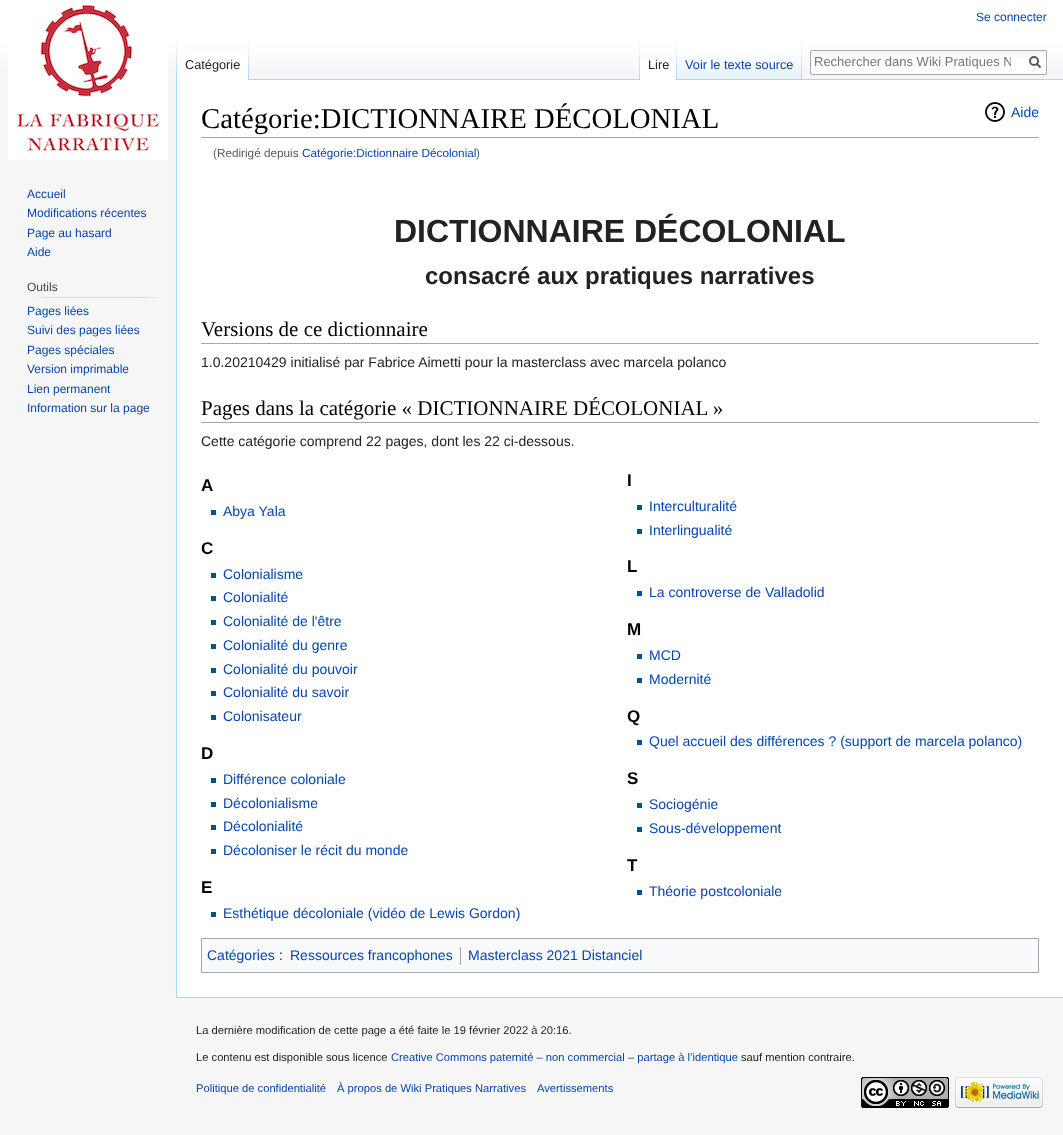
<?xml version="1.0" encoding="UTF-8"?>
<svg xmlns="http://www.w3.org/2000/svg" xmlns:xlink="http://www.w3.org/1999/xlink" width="1063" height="1135">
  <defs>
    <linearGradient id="g1" gradientUnits="userSpaceOnUse" x1="532" y1="0" x2="532" y2="80"><stop offset="0.5" stop-color="#ffffff" /><stop offset="1" stop-color="#f6f6f6" /></linearGradient>
    <clipPath id="clip1"><rect x="814" y="54" width="197" height="15" /></clipPath>
  </defs>
  <rect width="100%" height="100%" fill="#f6f6f6" />
  <rect width="1063" height="69" fill="url(#g1)" />
  <image x="176" y="40" width="1" height="39" xlink:href="image1.png" />
  <rect x="177" y="51" width="71" height="29" fill="#ffffff" />
  <image x="248" y="40" width="1" height="40" xlink:href="image2.png" />
  <image x="639" y="40" width="1" height="39" xlink:href="image1.png" />
  <rect x="249" y="79" width="814" height="1" fill="#a7d7f9" />
  <rect x="640" y="60" width="36" height="20" fill="#ffffff" />
  <image x="676" y="40" width="1" height="40" xlink:href="image2.png" />
  <image x="677" y="40" width="124" height="39" xlink:href="image3.png" />
  <image x="801" y="40" width="1" height="39" xlink:href="image1.png" />
  <rect x="810" y="50" width="237" height="25" rx="2" fill="#ffffff" />
  <image x="810" y="51" width="237" height="8" xlink:href="image4.png" />
  <rect x="810.5" y="50.5" width="236" height="24" rx="1.5" fill="none" stroke="#a2a9b1" />
  <path d="M 1040.5 67.5 l -4 -4" fill="none" stroke="#54595d" stroke-width="2" />
  <circle cx="1034" cy="61" r="4" fill="none" stroke="#54595d" stroke-width="2" />
  <image x="8" y="5" width="160" height="155" xlink:href="image5.png" />
  <image x="30" y="297" width="128" height="1" xlink:href="image6.png" />
  <rect x="177" y="80" width="886" height="917" fill="#ffffff" />
  <rect x="176" y="997" width="887" height="1" fill="#a7d7f9" />
  <rect x="176" y="79" width="1" height="919" fill="#a7d7f9" />
  <rect x="201" y="137" width="838" height="1" fill="#a2a9b1" />
  <image x="985" y="102" width="20" height="20" xlink:href="image7.png" />
  <rect x="201" y="343" width="838" height="1" fill="#a2a9b1" />
  <rect x="201" y="422" width="838" height="1" fill="#a2a9b1" />
  <rect x="211" y="510" width="5" height="5" fill="#00528c" />
  <rect x="637" y="505" width="5" height="5" fill="#00528c" />
  <rect x="637" y="529" width="5" height="5" fill="#00528c" />
  <rect x="211" y="573" width="5" height="5" fill="#00528c" />
  <rect x="211" y="596" width="5" height="5" fill="#00528c" />
  <rect x="211" y="620" width="5" height="5" fill="#00528c" />
  <rect x="211" y="644" width="5" height="5" fill="#00528c" />
  <rect x="211" y="668" width="5" height="5" fill="#00528c" />
  <rect x="211" y="691" width="5" height="5" fill="#00528c" />
  <rect x="211" y="715" width="5" height="5" fill="#00528c" />
  <rect x="637" y="591" width="5" height="5" fill="#00528c" />
  <rect x="637" y="654" width="5" height="5" fill="#00528c" />
  <rect x="637" y="678" width="5" height="5" fill="#00528c" />
  <rect x="637" y="740" width="5" height="5" fill="#00528c" />
  <rect x="211" y="778" width="5" height="5" fill="#00528c" />
  <rect x="211" y="802" width="5" height="5" fill="#00528c" />
  <rect x="211" y="825" width="5" height="5" fill="#00528c" />
  <rect x="211" y="849" width="5" height="5" fill="#00528c" />
  <rect x="637" y="803" width="5" height="5" fill="#00528c" />
  <rect x="637" y="827" width="5" height="5" fill="#00528c" />
  <rect x="211" y="912" width="5" height="5" fill="#00528c" />
  <rect x="637" y="890" width="5" height="5" fill="#00528c" />
  <rect x="201.5" y="938.5" width="837" height="34" fill="#f8f9fa" stroke="#a2a9b1" />
  <rect x="460" y="947" width="1" height="18" fill="#a2a9b1" />
  <image x="861" y="1077" width="88" height="31" xlink:href="image8.png" />
  <image x="955" y="1077" width="88" height="31" xlink:href="image9.png" />
  <text x="976" y="21" style="font-family: Liberation Sans; font-size: 12px; fill: #0645ad">Se connecter</text>
  <text x="185" y="69" style="font-family: Liberation Sans; font-size: 12.75px; fill: #222222">Catégorie</text>
  <text x="648" y="69" style="font-family: Liberation Sans; font-size: 12.75px; fill: #222222">Lire</text>
  <text x="685" y="69" style="font-family: Liberation Sans; font-size: 12.75px; fill: #0645ad">Voir le texte source</text>
  <g clip-path="url(#clip1)">
    <text x="814" y="66" style="font-family: Liberation Sans; font-size: 13px; fill: #72777d">Rechercher dans Wiki Pratiques N</text>
  </g>
  <text x="27" y="198" style="font-family: Liberation Sans; font-size: 12px; fill: #0645ad">Accueil</text>
  <text x="27" y="217" style="font-family: Liberation Sans; font-size: 12px; fill: #0645ad">Modifications récentes</text>
  <text x="27" y="237" style="font-family: Liberation Sans; font-size: 12px; fill: #0645ad">Page au hasard</text>
  <text x="27" y="256" style="font-family: Liberation Sans; font-size: 12px; fill: #0645ad">Aide</text>
  <text x="27" y="291" style="font-family: Liberation Sans; font-size: 12px; fill: #444444">Outils</text>
  <text x="27" y="315" style="font-family: Liberation Sans; font-size: 12px; fill: #0645ad">Pages liées</text>
  <text x="27" y="334" style="font-family: Liberation Sans; font-size: 12px; fill: #0645ad">Suivi des pages liées</text>
  <text x="27" y="354" style="font-family: Liberation Sans; font-size: 12px; fill: #0645ad">Pages spéciales</text>
  <text x="27" y="373" style="font-family: Liberation Sans; font-size: 12px; fill: #0645ad">Version imprimable</text>
  <text x="27" y="393" style="font-family: Liberation Sans; font-size: 12px; fill: #0645ad">Lien permanent</text>
  <text x="27" y="412" style="font-family: Liberation Sans; font-size: 12px; fill: #0645ad">Information sur la page</text>
  <text x="201" y="128" style="font-family: Liberation Serif; font-size: 28.75px; fill: #000000">Catégorie:DICTIONNAIRE DÉCOLONIAL</text>
  <text x="1011" y="117" style="font-family: Liberation Sans; font-size: 14px; fill: #0645ad">Aide</text>
  <text x="213" y="157" style="font-family: Liberation Sans; font-size: 11.75px; fill: #54595d">(Redirigé depuis</text>
  <text x="302" y="157" style="font-family: Liberation Sans; font-size: 11.75px; fill: #0645ad">Catégorie:Dictionnaire Décolonial</text>
  <text x="476" y="157" style="font-family: Liberation Sans; font-size: 11.75px; fill: #54595d">)</text>
  <text x="394" y="242" style="font-family: Liberation Sans; font-size: 32px; font-weight: bold; fill: #222222">DICTIONNAIRE DÉCOLONIAL</text>
  <text x="425" y="284" style="font-family: Liberation Sans; font-size: 24px; font-weight: bold; fill: #222222">consacré aux pratiques narratives</text>
  <text x="201" y="336" style="font-family: Liberation Serif; font-size: 21px; fill: #000000">Versions de ce dictionnaire</text>
  <text x="201" y="367" style="font-family: Liberation Sans; font-size: 14px; fill: #222222">1.0.20210429 initialisé par Fabrice Aimetti pour la masterclass avec marcela polanco</text>
  <text x="201" y="415" style="font-family: Liberation Serif; font-size: 21px; fill: #000000">Pages dans la catégorie « DICTIONNAIRE DÉCOLONIAL »</text>
  <text x="201" y="446" style="font-family: Liberation Sans; font-size: 14px; fill: #222222">Cette catégorie comprend 22 pages, dont les 22 ci-dessous.</text>
  <text x="201" y="491" style="font-family: Liberation Sans; font-size: 17px; font-weight: bold; fill: #000000">A</text>
  <text x="223" y="516" style="font-family: Liberation Sans; font-size: 14px; fill: #0645ad">Abya Yala</text>
  <text x="627" y="486" style="font-family: Liberation Sans; font-size: 17px; font-weight: bold; fill: #000000">I</text>
  <text x="649" y="511" style="font-family: Liberation Sans; font-size: 14px; fill: #0645ad">Interculturalité</text>
  <text x="649" y="535" style="font-family: Liberation Sans; font-size: 14px; fill: #0645ad">Interlingualité</text>
  <text x="201" y="554" style="font-family: Liberation Sans; font-size: 17px; font-weight: bold; fill: #000000">C</text>
  <text x="223" y="579" style="font-family: Liberation Sans; font-size: 14px; fill: #0645ad">Colonialisme</text>
  <text x="223" y="602" style="font-family: Liberation Sans; font-size: 14px; fill: #0645ad">Colonialité</text>
  <text x="223" y="626" style="font-family: Liberation Sans; font-size: 14px; fill: #0645ad">Colonialité de l'être</text>
  <text x="223" y="650" style="font-family: Liberation Sans; font-size: 14px; fill: #0645ad">Colonialité du genre</text>
  <text x="223" y="674" style="font-family: Liberation Sans; font-size: 14px; fill: #0645ad">Colonialité du pouvoir</text>
  <text x="223" y="697" style="font-family: Liberation Sans; font-size: 14px; fill: #0645ad">Colonialité du savoir</text>
  <text x="223" y="721" style="font-family: Liberation Sans; font-size: 14px; fill: #0645ad">Colonisateur</text>
  <text x="627" y="572" style="font-family: Liberation Sans; font-size: 17px; font-weight: bold; fill: #000000">L</text>
  <text x="649" y="597" style="font-family: Liberation Sans; font-size: 14px; fill: #0645ad">La controverse de Valladolid</text>
  <text x="627" y="635" style="font-family: Liberation Sans; font-size: 17px; font-weight: bold; fill: #000000">M</text>
  <text x="649" y="660" style="font-family: Liberation Sans; font-size: 14px; fill: #0645ad">MCD</text>
  <text x="649" y="684" style="font-family: Liberation Sans; font-size: 14px; fill: #0645ad">Modernité</text>
  <text x="627" y="722" style="font-family: Liberation Sans; font-size: 17px; font-weight: bold; fill: #000000">Q</text>
  <text x="649" y="746" style="font-family: Liberation Sans; font-size: 14px; fill: #0645ad">Quel accueil des différences ? (support de marcela polanco)</text>
  <text x="201" y="759" style="font-family: Liberation Sans; font-size: 17px; font-weight: bold; fill: #000000">D</text>
  <text x="223" y="784" style="font-family: Liberation Sans; font-size: 14px; fill: #0645ad">Différence coloniale</text>
  <text x="223" y="808" style="font-family: Liberation Sans; font-size: 14px; fill: #0645ad">Décolonialisme</text>
  <text x="223" y="831" style="font-family: Liberation Sans; font-size: 14px; fill: #0645ad">Décolonialité</text>
  <text x="223" y="855" style="font-family: Liberation Sans; font-size: 14px; fill: #0645ad">Décoloniser le récit du monde</text>
  <text x="627" y="784" style="font-family: Liberation Sans; font-size: 17px; font-weight: bold; fill: #000000">S</text>
  <text x="649" y="809" style="font-family: Liberation Sans; font-size: 14px; fill: #0645ad">Sociogénie</text>
  <text x="649" y="833" style="font-family: Liberation Sans; font-size: 14px; fill: #0645ad">Sous-développement</text>
  <text x="201" y="893" style="font-family: Liberation Sans; font-size: 17px; font-weight: bold; fill: #000000">E</text>
  <text x="223" y="918" style="font-family: Liberation Sans; font-size: 14px; fill: #0645ad">Esthétique décoloniale (vidéo de Lewis Gordon)</text>
  <text x="627" y="871" style="font-family: Liberation Sans; font-size: 17px; font-weight: bold; fill: #000000">T</text>
  <text x="649" y="896" style="font-family: Liberation Sans; font-size: 14px; fill: #0645ad">Théorie postcoloniale</text>
  <text x="207" y="960" style="font-family: Liberation Sans; font-size: 14px; fill: #0645ad">Catégories</text>
  <text x="279" y="960" style="font-family: Liberation Sans; font-size: 14px; fill: #222222">:</text>
  <text x="290" y="960" style="font-family: Liberation Sans; font-size: 14px; fill: #0645ad">Ressources francophones</text>
  <text x="468" y="960" style="font-family: Liberation Sans; font-size: 14px; fill: #0645ad">Masterclass 2021 Distanciel</text>
  <text x="196" y="1034" style="font-family: Liberation Sans; font-size: 11.2px; fill: #222222">La dernière modification de cette page a été faite le 19 février 2022 à 20:16.</text>
  <text x="196" y="1061" style="font-family: Liberation Sans; font-size: 11.2px; fill: #222222">Le contenu est disponible sous licence</text>
  <text x="391" y="1061" style="font-family: Liberation Sans; font-size: 11.2px; fill: #0645ad">Creative Commons paternité – non commercial – partage à l’identique</text>
  <text x="741" y="1061" style="font-family: Liberation Sans; font-size: 11.2px; fill: #222222">sauf mention contraire.</text>
  <text x="196" y="1092" style="font-family: Liberation Sans; font-size: 11.2px; fill: #0645ad">Politique de confidentialité</text>
  <text x="337" y="1092" style="font-family: Liberation Sans; font-size: 11.2px; fill: #0645ad">À propos de Wiki Pratiques Narratives</text>
  <text x="537" y="1092" style="font-family: Liberation Sans; font-size: 11.2px; fill: #0645ad">Avertissements</text>
</svg>
